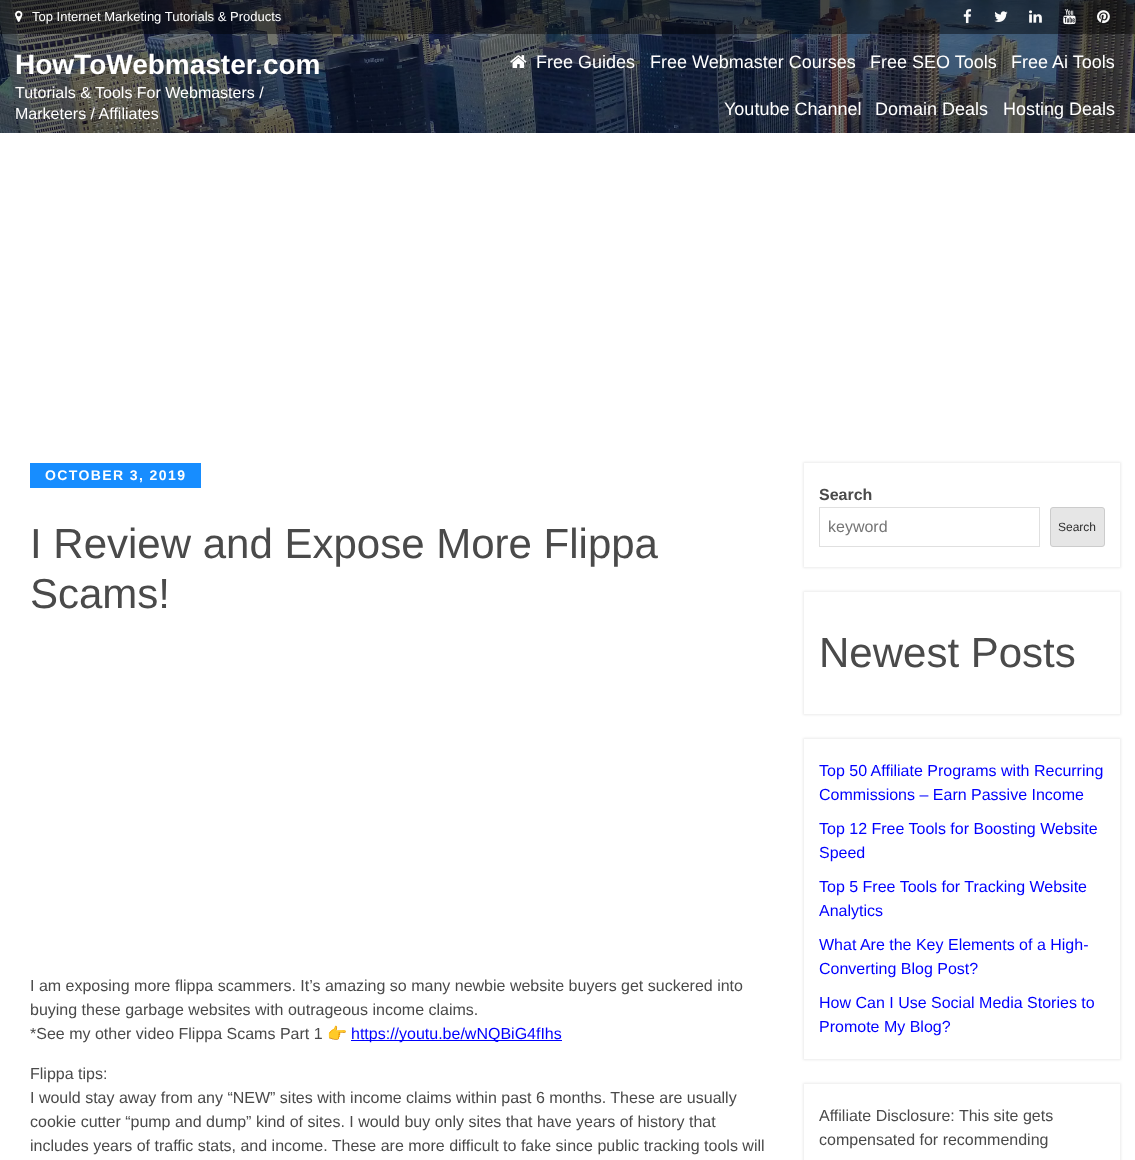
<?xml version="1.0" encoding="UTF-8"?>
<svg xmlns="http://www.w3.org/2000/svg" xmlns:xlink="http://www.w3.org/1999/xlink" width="1135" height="1160">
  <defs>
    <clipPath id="clip1"><path d="M 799 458 h 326 v 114 h -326 z m 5 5 h 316 v 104 h -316 z" clip-rule="evenodd" /></clipPath>
    <clipPath id="clip2"><path d="M 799 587 h 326 v 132 h -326 z m 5 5 h 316 v 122 h -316 z" clip-rule="evenodd" /></clipPath>
    <clipPath id="clip3"><path d="M 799 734 h 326 v 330 h -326 z m 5 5 h 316 v 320 h -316 z" clip-rule="evenodd" /></clipPath>
    <clipPath id="clip4"><path d="M 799 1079 h 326 v 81 h -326 z m 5 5 h 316 v 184 h -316 z" clip-rule="evenodd" /></clipPath>
  </defs>
  <rect width="100%" height="100%" fill="#ffffff" />
  <image x="0" y="0" width="1135" height="133" xlink:href="image1.png" />
  <rect width="1135" height="34" fill="#000000" fill-opacity="0.45" />
  <image x="15" y="10" width="8" height="12" xlink:href="image2.png" />
  <image x="963" y="9" width="9" height="15" xlink:href="image3.png" />
  <image x="994" y="11" width="14" height="11" xlink:href="image4.png" />
  <image x="1029" y="10" width="13" height="13" xlink:href="image5.png" />
  <image x="1063" y="9" width="13" height="16" xlink:href="image6.png" />
  <image x="1097" y="10" width="13" height="14" xlink:href="image7.png" />
  <image x="510" y="55" width="17" height="13" xlink:href="image8.png" />
  <rect x="30" y="463" width="171" height="25" fill="#178dff" />
  <rect x="351" y="1040" width="211" height="1" fill="#0000ff" />
  <g clip-path="url(#clip1)">
    <rect x="803" y="462" width="318" height="106" fill="#000000" fill-opacity="0.08" filter="blur(1px)" />
  </g>
  <rect x="819.5" y="507.5" width="220" height="39" fill="none" stroke="#e0e0e0" />
  <rect x="1050.5" y="507.5" width="54" height="39" rx="2.5" fill="#e6e6e6" stroke="#cccccc" />
  <g clip-path="url(#clip2)">
    <rect x="803" y="591" width="318" height="124" fill="#000000" fill-opacity="0.08" filter="blur(1px)" />
  </g>
  <g clip-path="url(#clip3)">
    <rect x="803" y="738" width="318" height="322" fill="#000000" fill-opacity="0.08" filter="blur(1px)" />
  </g>
  <g clip-path="url(#clip4)">
    <rect x="803" y="1083" width="318" height="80" fill="#000000" fill-opacity="0.08" filter="blur(1px)" />
  </g>
  <text x="32" y="21" style="font-family: Liberation Sans; font-size: 13px; fill: #ffffff">Top Internet Marketing Tutorials &amp; Products</text>
  <text x="15" y="74" style="font-family: Liberation Sans; font-size: 28px; font-weight: bold; fill: #ffffff">HowToWebmaster.com</text>
  <text x="15" y="98" style="font-family: Liberation Sans; font-size: 16px; fill: #ffffff">Tutorials &amp; Tools For Webmasters /</text>
  <text x="15" y="119" style="font-family: Liberation Sans; font-size: 16px; fill: #ffffff">Marketers / Affiliates</text>
  <text x="536" y="68" style="font-family: Liberation Sans; font-size: 18px; fill: #ffffff">Free Guides</text>
  <text x="650" y="68" style="font-family: Liberation Sans; font-size: 18px; fill: #ffffff">Free Webmaster Courses</text>
  <text x="870" y="68" style="font-family: Liberation Sans; font-size: 18px; fill: #ffffff">Free SEO Tools</text>
  <text x="1011" y="68" style="font-family: Liberation Sans; font-size: 18px; fill: #ffffff">Free Ai Tools</text>
  <text x="724" y="115" style="font-family: Liberation Sans; font-size: 18px; fill: #ffffff">Youtube Channel</text>
  <text x="875" y="115" style="font-family: Liberation Sans; font-size: 18px; fill: #ffffff">Domain Deals</text>
  <text x="1003" y="115" style="font-family: Liberation Sans; font-size: 18px; fill: #ffffff">Hosting Deals</text>
  <text x="45" y="480" style="font-family: Liberation Sans; font-size: 14px; font-weight: bold; letter-spacing: 1.4px; fill: #ffffff">OCTOBER 3, 2019</text>
  <text x="30" y="558" style="font-family: Liberation Sans; font-size: 42px; fill: #4a4a4a">I Review and Expose More Flippa</text>
  <text x="30" y="608" style="font-family: Liberation Sans; font-size: 42px; fill: #4a4a4a">Scams!</text>
  <text x="30" y="991" style="font-family: Liberation Sans; font-size: 16px; fill: #4a4a4a">I am exposing more flippa scammers. It’s amazing so many newbie website buyers get suckered into</text>
  <text x="30" y="1015" style="font-family: Liberation Sans; font-size: 16px; fill: #4a4a4a">buying these garbage websites with outrageous income claims.</text>
  <text x="30" y="1039" style="font-family: Liberation Sans; font-size: 16px; fill: #4a4a4a">*See my other video Flippa Scams Part 1</text>
  <text x="327" y="1039" style="font-family: Noto Color Emoji; font-size: 16px; fill: #4a4a4a">👉</text>
  <text x="351" y="1039" style="font-family: Liberation Sans; font-size: 16px; fill: #0000ff">https://youtu.be/wNQBiG4fIhs</text>
  <text x="30" y="1079" style="font-family: Liberation Sans; font-size: 16px; fill: #4a4a4a">Flippa tips:</text>
  <text x="30" y="1103" style="font-family: Liberation Sans; font-size: 16px; fill: #4a4a4a">I would stay away from any “NEW” sites with income claims within past 6 months. These are usually</text>
  <text x="30" y="1127" style="font-family: Liberation Sans; font-size: 16px; fill: #4a4a4a">cookie cutter “pump and dump” kind of sites. I would buy only sites that have years of history that</text>
  <text x="30" y="1151" style="font-family: Liberation Sans; font-size: 16px; fill: #4a4a4a">includes years of traffic stats, and income. These are more difficult to fake since public tracking tools will</text>
  <text x="819" y="500" style="font-family: Liberation Sans; font-size: 16px; font-weight: bold; fill: #4a4a4a">Search</text>
  <text x="828" y="532" style="font-family: Liberation Sans; font-size: 16px; fill: #757575">keyword</text>
  <text x="1058" y="531" style="font-family: Liberation Sans; font-size: 12px; fill: #2e2e2e">Search</text>
  <text x="819" y="667" style="font-family: Liberation Sans; font-size: 42px; fill: #4a4a4a">Newest Posts</text>
  <text x="819" y="776" style="font-family: Liberation Sans; font-size: 16px; fill: #0000ff">Top 50 Affiliate Programs with Recurring</text>
  <text x="819" y="800" style="font-family: Liberation Sans; font-size: 16px; fill: #0000ff">Commissions – Earn Passive Income</text>
  <text x="819" y="834" style="font-family: Liberation Sans; font-size: 16px; fill: #0000ff">Top 12 Free Tools for Boosting Website</text>
  <text x="819" y="858" style="font-family: Liberation Sans; font-size: 16px; fill: #0000ff">Speed</text>
  <text x="819" y="892" style="font-family: Liberation Sans; font-size: 16px; fill: #0000ff">Top 5 Free Tools for Tracking Website</text>
  <text x="819" y="916" style="font-family: Liberation Sans; font-size: 16px; fill: #0000ff">Analytics</text>
  <text x="819" y="950" style="font-family: Liberation Sans; font-size: 16px; fill: #0000ff">What Are the Key Elements of a High-</text>
  <text x="819" y="974" style="font-family: Liberation Sans; font-size: 16px; fill: #0000ff">Converting Blog Post?</text>
  <text x="819" y="1008" style="font-family: Liberation Sans; font-size: 16px; fill: #0000ff">How Can I Use Social Media Stories to</text>
  <text x="819" y="1032" style="font-family: Liberation Sans; font-size: 16px; fill: #0000ff">Promote My Blog?</text>
  <text x="819" y="1121" style="font-family: Liberation Sans; font-size: 16px; fill: #4a4a4a">Affiliate Disclosure: This site gets</text>
  <text x="819" y="1145" style="font-family: Liberation Sans; font-size: 16px; fill: #4a4a4a">compensated for recommending</text>
</svg>
